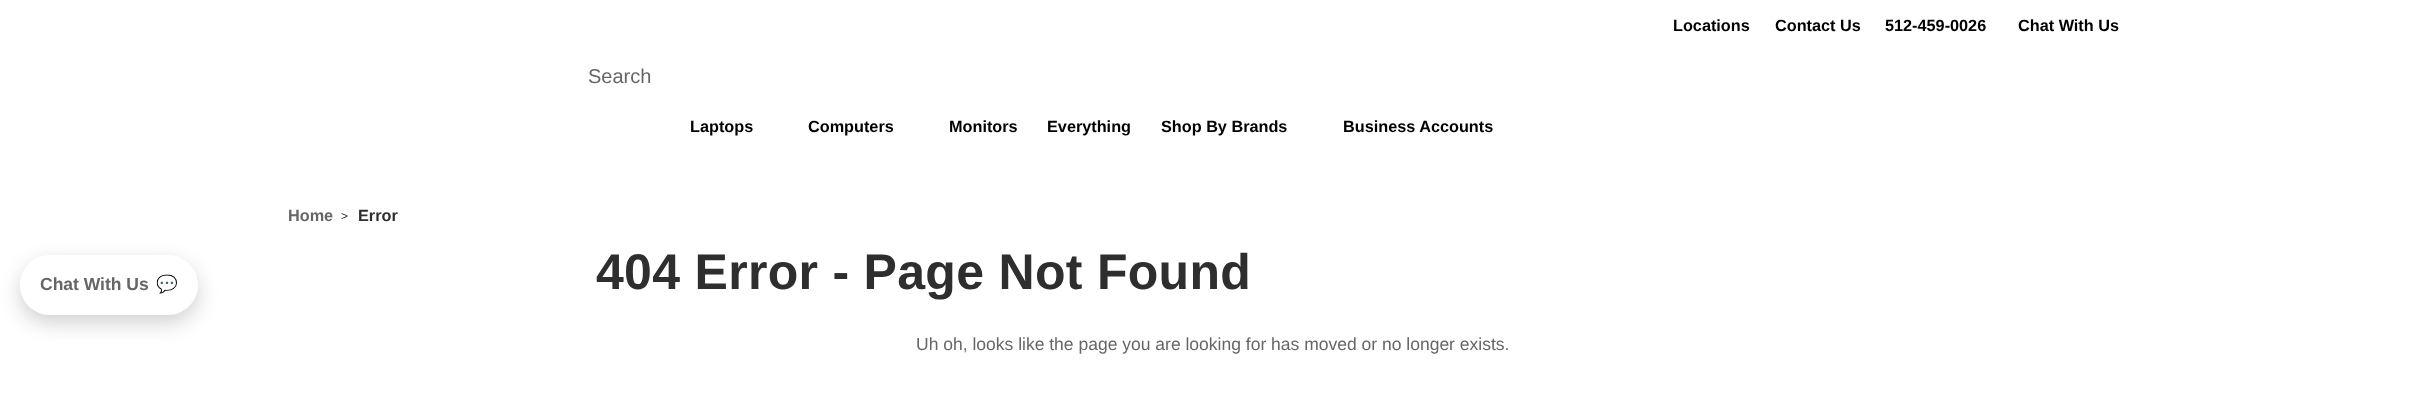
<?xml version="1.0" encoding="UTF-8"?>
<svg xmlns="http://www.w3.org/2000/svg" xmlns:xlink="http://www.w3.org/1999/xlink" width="2425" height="419">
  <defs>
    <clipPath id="clip1"><path d="M 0 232 h 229 v 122 h -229 z m 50 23 h 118 c 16.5 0 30 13.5 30 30 c 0 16.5 -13.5 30 -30 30 h -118 c -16.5 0 -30 -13.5 -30 -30 c 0 -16.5 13.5 -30 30 -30 z" clip-rule="evenodd" /></clipPath>
  </defs>
  <rect width="100%" height="100%" fill="#ffffff" />
  <g clip-path="url(#clip1)">
    <rect x="20" y="263" width="178" height="60" rx="30" fill="#000000" fill-opacity="0.18" filter="blur(10px)" />
  </g>
  <text x="1673" y="31" style="font-family: Liberation Sans; font-size: 16.25px; font-weight: bold; fill: #000000">Locations</text>
  <text x="1775" y="31" style="font-family: Liberation Sans; font-size: 16.25px; font-weight: bold; fill: #000000">Contact Us</text>
  <text x="1885" y="31" style="font-family: Liberation Sans; font-size: 16.25px; font-weight: bold; fill: #000000">512-459-0026</text>
  <text x="2018" y="31" style="font-family: Liberation Sans; font-size: 16.25px; font-weight: bold; fill: #000000">Chat With Us</text>
  <text x="588" y="83" style="font-family: Liberation Sans; font-size: 20px; fill: #666666">Search</text>
  <text x="690" y="132" style="font-family: Liberation Sans; font-size: 16.25px; font-weight: bold; fill: #000000">Laptops</text>
  <text x="808" y="132" style="font-family: Liberation Sans; font-size: 16.25px; font-weight: bold; fill: #000000">Computers</text>
  <text x="949" y="132" style="font-family: Liberation Sans; font-size: 16.25px; font-weight: bold; fill: #000000">Monitors</text>
  <text x="1047" y="132" style="font-family: Liberation Sans; font-size: 16.25px; font-weight: bold; fill: #000000">Everything</text>
  <text x="1161" y="132" style="font-family: Liberation Sans; font-size: 16.25px; font-weight: bold; fill: #000000">Shop By Brands</text>
  <text x="1343" y="132" style="font-family: Liberation Sans; font-size: 16.25px; font-weight: bold; fill: #000000">Business Accounts</text>
  <text x="40" y="290" style="font-family: Liberation Sans; font-size: 17.5px; font-weight: bold; fill: #666666">Chat With Us</text>
  <text x="156" y="290" style="font-family: Noto Color Emoji; font-size: 17.5px; font-weight: bold; fill: #666666">💬</text>
  <text x="288" y="221" style="font-family: Liberation Sans; font-size: 16.25px; font-weight: bold; fill: #666666">Home</text>
  <text x="341" y="220" style="font-family: Liberation Sans; font-size: 12px; fill: #2e2e2e">&gt;</text>
  <text x="358" y="221" style="font-family: Liberation Sans; font-size: 16.25px; font-weight: bold; fill: #2e2e2e">Error</text>
  <text x="596" y="289" style="font-family: Liberation Sans; font-size: 50px; font-weight: bold; letter-spacing: 0.3px; fill: #2e2e2e">404 Error - Page Not Found</text>
  <text x="916" y="350" style="font-family: Liberation Sans; font-size: 17.5px; fill: #666666">Uh oh, looks like the page you are looking for has moved or no longer exists.</text>
</svg>
